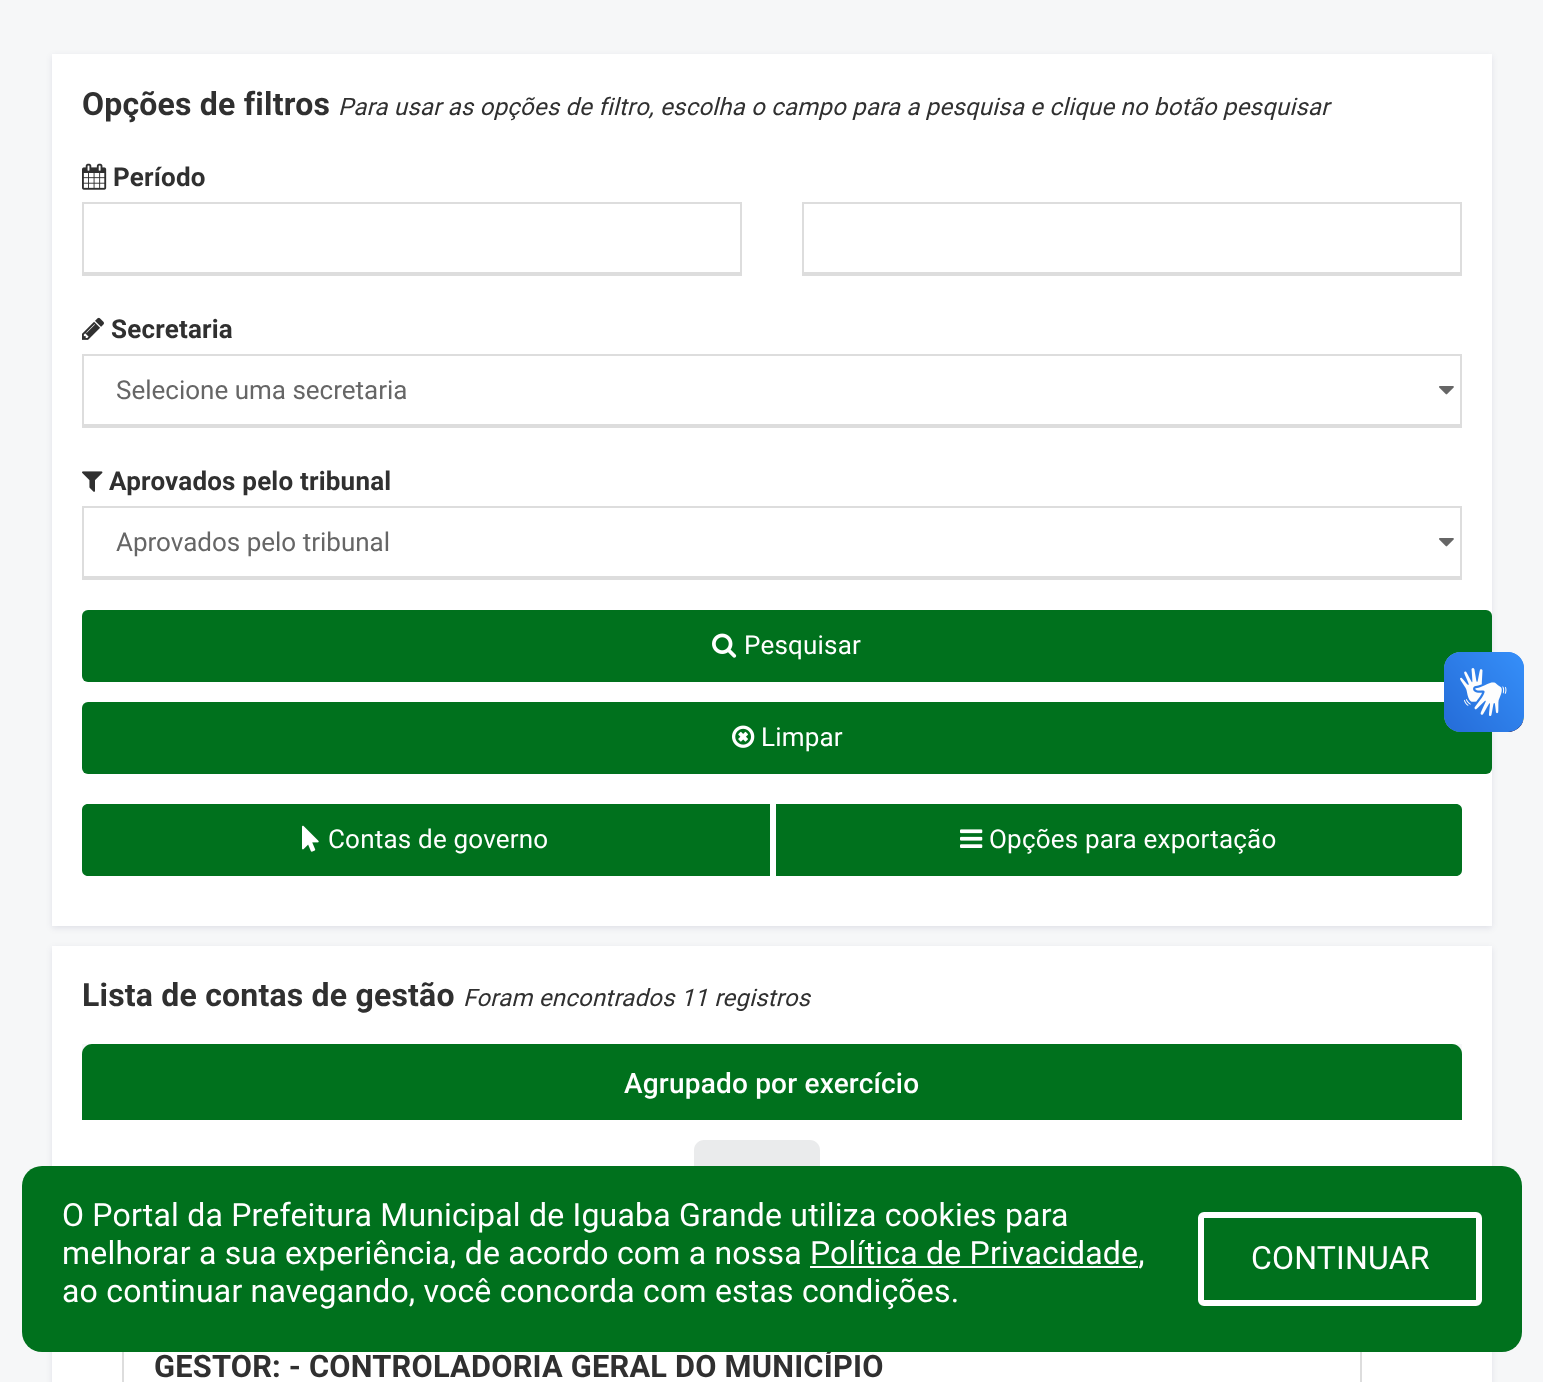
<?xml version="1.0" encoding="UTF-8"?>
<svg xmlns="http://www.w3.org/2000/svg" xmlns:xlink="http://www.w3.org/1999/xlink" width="1543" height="1382">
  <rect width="100%" height="100%" fill="#f6f7f8" />
  <rect x="52" y="56" width="1440" height="872" fill="#030047" fill-opacity="0.09" filter="blur(3px)" />
  <rect x="52" y="54" width="1440" height="872" fill="#ffffff" />
  <image x="82" y="163" width="25" height="27" xlink:href="image1.png" />
  <rect x="84" y="272" width="656" height="2" fill="#dddddd" />
  <rect x="83" y="203" width="658" height="72" fill="none" stroke="#dddddd" stroke-width="2" />
  <rect x="804" y="272" width="656" height="2" fill="#dddddd" />
  <rect x="803" y="203" width="658" height="72" fill="none" stroke="#dddddd" stroke-width="2" />
  <image x="82" y="317" width="22" height="23" xlink:href="image2.png" />
  <image x="1439" y="386" width="15" height="9" xlink:href="image3.png" />
  <rect x="84" y="424" width="1376" height="2" fill="#dddddd" />
  <rect x="83" y="355" width="1378" height="72" fill="none" stroke="#dddddd" stroke-width="2" />
  <image x="82" y="471" width="21" height="21" xlink:href="image4.png" />
  <image x="1439" y="538" width="15" height="9" xlink:href="image3.png" />
  <rect x="84" y="576" width="1376" height="2" fill="#dddddd" />
  <rect x="83" y="507" width="1378" height="72" fill="none" stroke="#dddddd" stroke-width="2" />
  <rect x="82" y="610" width="1410" height="72" rx="6" fill="#00711d" />
  <image x="712" y="633" width="25" height="25" xlink:href="image5.png" />
  <rect x="82" y="702" width="1410" height="72" rx="6" fill="#00711d" />
  <image x="732" y="725" width="23" height="23" xlink:href="image6.png" />
  <path d="M 88 804 h 682 v 72 h -682 c -3.5 0 -6 -2.5 -6 -6 v -60 c 0 -3.5 2.5 -6 6 -6 z" fill="#00711d" />
  <image x="302" y="825" width="17" height="27" xlink:href="image7.png" />
  <path d="M 776 804 h 680 c 3.5 0 6 2.5 6 6 v 60 c 0 3.5 -2.5 6 -6 6 h -680 z" fill="#00711d" />
  <image x="960" y="829" width="23" height="19" xlink:href="image8.png" />
  <image x="1444" y="652" width="80" height="80" xlink:href="image9.png" />
  <image x="1444" y="652" width="80" height="80" xlink:href="image10.png" />
  <rect x="52" y="948" width="1440" height="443" fill="#030047" fill-opacity="0.09" filter="blur(3px)" />
  <rect x="52" y="946" width="1440" height="436" fill="#ffffff" />
  <rect x="82" y="1044" width="1380" height="10" fill="#f6f7f8" />
  <path d="M 92 1044 h 1360 c 5.5 0 10 4.5 10 10 v 66 h -1380 v -66 c 0 -5.5 4.5 -10 10 -10 z" fill="#00711d" />
  <path d="M 704 1140 h 106 c 5.5 0 10 4.5 10 10 v 78 h -126 v -78 c 0 -5.5 4.5 -10 10 -10 z" fill="#eaebec" />
  <rect x="123" y="1319" width="1238" height="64" fill="none" stroke="#dddddd" stroke-width="2" />
  <text x="82" y="115" style="font-family: Roboto; font-size: 32px; font-weight: bold; letter-spacing: 0.2px; fill: #303030">Opções de filtros</text>
  <text x="338" y="115" style="font-family: Roboto; font-size: 24px; font-style: italic; letter-spacing: 0.2px; fill: #303030">Para usar as opções de filtro, escolha o campo para a pesquisa e clique no botão pesquisar</text>
  <text x="113" y="186" style="font-family: Roboto; font-size: 26px; font-weight: bold; letter-spacing: 0.2px; fill: #303030">Período</text>
  <text x="111" y="338" style="font-family: Roboto; font-size: 26px; font-weight: bold; letter-spacing: 0.2px; fill: #303030">Secretaria</text>
  <text x="116" y="399" style="font-family: Roboto; font-size: 26px; fill: #666666">Selecione uma secretaria</text>
  <text x="109" y="490" style="font-family: Roboto; font-size: 26px; font-weight: bold; letter-spacing: 0.2px; fill: #303030">Aprovados pelo tribunal</text>
  <text x="116" y="551" style="font-family: Roboto; font-size: 26px; fill: #666666">Aprovados pelo tribunal</text>
  <text x="744" y="654" style="font-family: Roboto; font-size: 26px; letter-spacing: 0.2px; fill: #ffffff">Pesquisar</text>
  <text x="761" y="746" style="font-family: Roboto; font-size: 26px; letter-spacing: 0.2px; fill: #ffffff">Limpar</text>
  <text x="328" y="848" style="font-family: Roboto; font-size: 26px; letter-spacing: 0.2px; fill: #ffffff">Contas de governo</text>
  <text x="989" y="848" style="font-family: Roboto; font-size: 26px; letter-spacing: 0.2px; fill: #ffffff">Opções para exportação</text>
  <text x="82" y="1006" style="font-family: Roboto; font-size: 32px; font-weight: bold; letter-spacing: 0.2px; fill: #303030">Lista de contas de gestão</text>
  <text x="463" y="1006" style="font-family: Roboto; font-size: 24px; font-style: italic; letter-spacing: 0.2px; fill: #303030">Foram encontrados 11 registros</text>
  <text x="624" y="1093" style="font-family: Roboto; font-size: 28px; font-weight: 500; letter-spacing: 0.2px; fill: #ffffff">Agrupado por exercício</text>
  <text x="154" y="1377" style="font-family: Roboto; font-size: 30.8px; font-weight: bold; letter-spacing: 0.2px; fill: #303030">GESTOR: - CONTROLADORIA GERAL DO MUNICÍPIO</text>
  <rect x="22" y="1166" width="1500" height="186" rx="20" fill="#00711d" />
  <text x="62" y="1226" style="font-family: Roboto; font-size: 32px; letter-spacing: 0.2px; fill: #ffffff">O Portal da Prefeitura Municipal de Iguaba Grande utiliza cookies para</text>
  <text x="62" y="1264" style="font-family: Roboto; font-size: 32px; letter-spacing: 0.2px; fill: #ffffff">melhorar a sua experiência, de acordo com a nossa Política de Privacidade,</text>
  <rect x="810" y="1266" width="328" height="2" fill="#ffffff" />
  <text x="62" y="1302" style="font-family: Roboto; font-size: 32px; letter-spacing: 0.2px; fill: #ffffff">ao continuar navegando, você concorda com estas condições.</text>
  <rect x="1201" y="1215" width="278" height="88" rx="3" fill="none" stroke="#ffffff" stroke-width="6" />
  <text x="1251" y="1269" style="font-family: Roboto; font-size: 32px; letter-spacing: 0.2px; fill: #ffffff">CONTINUAR</text>
</svg>
